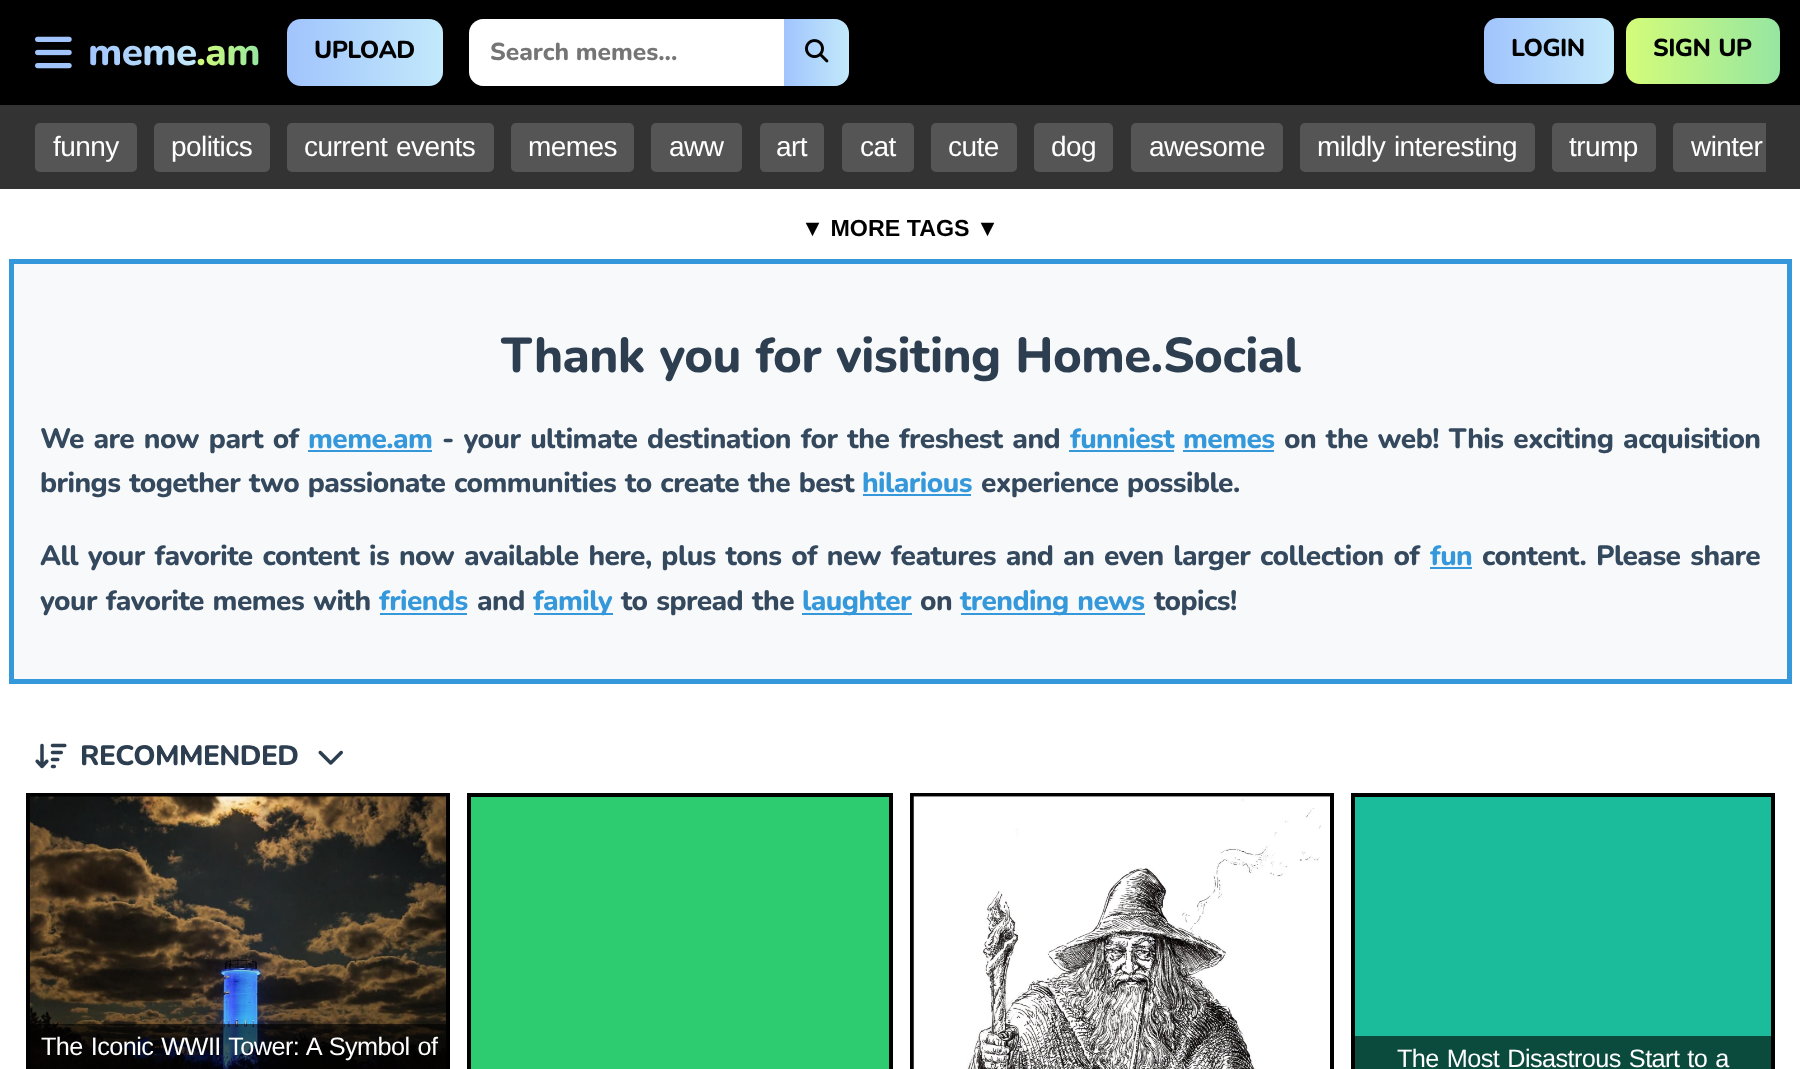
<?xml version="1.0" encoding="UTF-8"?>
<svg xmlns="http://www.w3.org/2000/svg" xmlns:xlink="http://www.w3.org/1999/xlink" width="1800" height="1069">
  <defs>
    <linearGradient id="g1" gradientUnits="userSpaceOnUse" x1="88" y1="53" x2="196" y2="52"><stop offset="0" stop-color="#a1c4fd" /><stop offset="1" stop-color="#c2e9fb" /></linearGradient>
    <linearGradient id="g2" gradientUnits="userSpaceOnUse" x1="196" y1="53" x2="260" y2="53"><stop offset="0" stop-color="#d4fc79" /><stop offset="1" stop-color="#96e6a1" /></linearGradient>
    <linearGradient id="g3" gradientUnits="userSpaceOnUse" x1="287" y1="53" x2="443" y2="52"><stop offset="0" stop-color="#a1c4fd" /><stop offset="1" stop-color="#c2e9fb" /></linearGradient>
    <linearGradient id="g4" gradientUnits="userSpaceOnUse" x1="784" y1="53" x2="849" y2="53"><stop offset="0" stop-color="#a1c4fd" /><stop offset="1" stop-color="#c2e9fb" /></linearGradient>
    <linearGradient id="g5" gradientUnits="userSpaceOnUse" x1="1484" y1="51" x2="1614" y2="51"><stop offset="0" stop-color="#a1c4fd" /><stop offset="1" stop-color="#c2e9fb" /></linearGradient>
    <linearGradient id="g6" gradientUnits="userSpaceOnUse" x1="1626" y1="51" x2="1780" y2="51"><stop offset="0" stop-color="#d4fc79" /><stop offset="1" stop-color="#96e6a1" /></linearGradient>
  </defs>
  <rect width="100%" height="100%" fill="#ffffff" />
  <rect width="1800" height="105" fill="#000000" />
  <image x="35" y="36" width="37" height="33" xlink:href="image1.png" />
  <rect x="287" y="19" width="156" height="67" rx="14" fill="url(#g3)" />
  <path d="M 483 19 h 301 v 67 h -301 c -7.5 0 -14 -6.5 -14 -14 v -39 c 0 -7.5 6.5 -14 14 -14 z" fill="#ffffff" />
  <path d="M 784 19 h 51 c 7.5 0 14 6.5 14 14 v 39 c 0 7.5 -6.5 14 -14 14 h -51 z" fill="url(#g4)" />
  <image x="805" y="39" width="24" height="24" xlink:href="image2.png" />
  <rect x="1484" y="18" width="130" height="66" rx="14" fill="url(#g5)" />
  <rect x="1626" y="18" width="154" height="66" rx="14" fill="url(#g6)" />
  <rect y="105" width="1800" height="84" fill="#333333" />
  <rect x="35" y="123" width="102" height="49" rx="5" fill="#555555" />
  <rect x="154" y="123" width="116" height="49" rx="5" fill="#555555" />
  <rect x="287" y="123" width="207" height="49" rx="5" fill="#555555" />
  <rect x="511" y="123" width="123" height="49" rx="5" fill="#555555" />
  <rect x="651" y="123" width="91" height="49" rx="5" fill="#555555" />
  <rect x="760" y="123" width="64" height="49" rx="5" fill="#555555" />
  <rect x="842" y="123" width="72" height="49" rx="5" fill="#555555" />
  <rect x="931" y="123" width="86" height="49" rx="5" fill="#555555" />
  <rect x="1034" y="123" width="79" height="49" rx="5" fill="#555555" />
  <rect x="1131" y="123" width="152" height="49" rx="5" fill="#555555" />
  <rect x="1300" y="123" width="235" height="49" rx="5" fill="#555555" />
  <rect x="1552" y="123" width="104" height="49" rx="5" fill="#555555" />
  <path d="M 1678 123 h 88 v 49 h -88 c -3 0 -5 -2 -5 -5 v -39 c 0 -3 2 -5 5 -5 z" fill="#555555" />
  <rect x="11.5" y="261.5" width="1778" height="420" fill="#f8f9fa" stroke="#3498db" stroke-width="5" />
  <rect x="308" y="450" width="124" height="2" fill="#3498db" />
  <rect x="1069" y="450" width="105" height="2" fill="#3498db" />
  <rect x="1183" y="450" width="91" height="2" fill="#3498db" />
  <rect x="863" y="494" width="108" height="2" fill="#3498db" />
  <rect x="1430" y="567" width="42" height="2" fill="#3498db" />
  <rect x="380" y="613" width="87" height="2" fill="#3498db" />
  <rect x="534" y="613" width="79" height="2" fill="#3498db" />
  <rect x="802" y="613" width="110" height="2" fill="#3498db" />
  <rect x="961" y="613" width="184" height="2" fill="#3498db" />
  <image x="35" y="743" width="32" height="26" xlink:href="image3.png" />
  <image x="318" y="750" width="25" height="15" xlink:href="image4.png" />
  <rect x="28" y="795" width="420" height="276" fill="none" stroke="#000000" stroke-width="4" />
  <image x="29" y="796" width="418" height="273" xlink:href="image5.png" />
  <rect x="30" y="1024" width="416" height="45" fill="#000000" fill-opacity="0.6" />
  <rect x="469" y="795" width="422" height="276" fill="#2ecc71" stroke="#000000" stroke-width="4" />
  <rect x="912" y="795" width="420" height="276" fill="none" stroke="#000000" stroke-width="4" />
  <image x="913" y="796" width="417" height="273" xlink:href="image6.png" />
  <rect x="1355" y="797" width="416" height="239" fill="#1abc9c" />
  <rect x="1353" y="795" width="420" height="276" fill="none" stroke="#000000" stroke-width="4" />
  <rect x="1355" y="1036" width="416" height="33" fill="#0a4b3e" />
  <text x="88" y="65" style="font-family: Nunito; font-size: 38.5px; font-weight: 800; letter-spacing: -0.56px; fill: url(#g1)">meme</text>
  <text x="196" y="65" style="font-family: Nunito; font-size: 38.5px; font-weight: 800; letter-spacing: -0.56px; fill: url(#g2)">.am</text>
  <text x="314" y="58" style="font-family: Nunito; font-size: 24.5px; font-weight: 800; letter-spacing: -0.56px; fill: #000000">UPLOAD</text>
  <text x="490" y="60" style="font-family: Nunito; font-size: 24.5px; font-weight: 800; fill: #757575">Search memes...</text>
  <text x="1511" y="56" style="font-family: Nunito; font-size: 24.5px; font-weight: 800; letter-spacing: -0.56px; fill: #000000">LOGIN</text>
  <text x="1653" y="56" word-spacing="1.5" style="font-family: Nunito; font-size: 24.5px; font-weight: 800; letter-spacing: -0.56px; fill: #000000">SIGN UP</text>
  <text x="53" y="156" style="font-family: Liberation Sans; font-size: 28px; letter-spacing: -0.56px; fill: #ffffff">funny</text>
  <text x="171" y="156" style="font-family: Liberation Sans; font-size: 28px; letter-spacing: -0.56px; fill: #ffffff">politics</text>
  <text x="304" y="156" word-spacing="1.5" style="font-family: Liberation Sans; font-size: 28px; letter-spacing: -0.56px; fill: #ffffff">current events</text>
  <text x="528" y="156" style="font-family: Liberation Sans; font-size: 28px; letter-spacing: -0.56px; fill: #ffffff">memes</text>
  <text x="669" y="156" style="font-family: Liberation Sans; font-size: 28px; letter-spacing: -0.56px; fill: #ffffff">aww</text>
  <text x="776" y="156" style="font-family: Liberation Sans; font-size: 28px; letter-spacing: -0.56px; fill: #ffffff">art</text>
  <text x="860" y="156" style="font-family: Liberation Sans; font-size: 28px; letter-spacing: -0.56px; fill: #ffffff">cat</text>
  <text x="948" y="156" style="font-family: Liberation Sans; font-size: 28px; letter-spacing: -0.56px; fill: #ffffff">cute</text>
  <text x="1051" y="156" style="font-family: Liberation Sans; font-size: 28px; letter-spacing: -0.56px; fill: #ffffff">dog</text>
  <text x="1149" y="156" style="font-family: Liberation Sans; font-size: 28px; letter-spacing: -0.56px; fill: #ffffff">awesome</text>
  <text x="1317" y="156" word-spacing="1.5" style="font-family: Liberation Sans; font-size: 28px; letter-spacing: -0.56px; fill: #ffffff">mildly interesting</text>
  <text x="1569" y="156" style="font-family: Liberation Sans; font-size: 28px; letter-spacing: -0.56px; fill: #ffffff">trump</text>
  <text x="1691" y="156" style="font-family: Liberation Sans; font-size: 28px; letter-spacing: -0.56px; fill: #ffffff">winter</text>
  <text x="801" y="236" style="font-family: Liberation Sans; font-size: 23.25px; font-weight: bold; fill: #000000">▼ MORE TAGS ▼</text>
  <text x="501" y="372" word-spacing="1.5" style="font-family: Nunito; font-size: 49px; font-weight: 800; letter-spacing: -0.56px; fill: #2c3e50">Thank you for visiting Home.Social</text>
  <text x="40" y="448" word-spacing="2.5" style="font-family: Nunito; font-size: 28px; font-weight: 800; letter-spacing: -0.56px; fill: #34495e">We are now part of</text>
  <text x="308" y="448" style="font-family: Nunito; font-size: 28px; font-weight: 800; letter-spacing: -0.56px; fill: #3498db">meme.am</text>
  <text x="442" y="448" word-spacing="2.5" style="font-family: Nunito; font-size: 28px; font-weight: 800; letter-spacing: -0.56px; fill: #34495e">- your ultimate destination for the freshest and</text>
  <text x="1070" y="448" style="font-family: Nunito; font-size: 28px; font-weight: 800; letter-spacing: -0.56px; fill: #3498db">funniest</text>
  <text x="1183" y="448" style="font-family: Nunito; font-size: 28px; font-weight: 800; letter-spacing: -0.56px; fill: #3498db">memes</text>
  <text x="1284" y="448" word-spacing="2.5" style="font-family: Nunito; font-size: 28px; font-weight: 800; letter-spacing: -0.56px; fill: #34495e">on the web! This exciting acquisition</text>
  <text x="40" y="492" word-spacing="1.5" style="font-family: Nunito; font-size: 28px; font-weight: 800; letter-spacing: -0.56px; fill: #34495e">brings together two passionate communities to create the best</text>
  <text x="862" y="492" style="font-family: Nunito; font-size: 28px; font-weight: 800; letter-spacing: -0.56px; fill: #3498db">hilarious</text>
  <text x="981" y="492" word-spacing="1.5" style="font-family: Nunito; font-size: 28px; font-weight: 800; letter-spacing: -0.56px; fill: #34495e">experience possible.</text>
  <text x="40" y="565" word-spacing="2.5" style="font-family: Nunito; font-size: 28px; font-weight: 800; letter-spacing: -0.56px; fill: #34495e">All your favorite content is now available here, plus tons of new features and an even larger collection of</text>
  <text x="1430" y="565" style="font-family: Nunito; font-size: 28px; font-weight: 800; letter-spacing: -0.56px; fill: #3498db">fun</text>
  <text x="1482" y="565" word-spacing="2.5" style="font-family: Nunito; font-size: 28px; font-weight: 800; letter-spacing: -0.56px; fill: #34495e">content. Please share</text>
  <text x="40" y="610" word-spacing="1.5" style="font-family: Nunito; font-size: 28px; font-weight: 800; letter-spacing: -0.56px; fill: #34495e">your favorite memes with</text>
  <text x="379" y="610" style="font-family: Nunito; font-size: 28px; font-weight: 800; letter-spacing: -0.56px; fill: #3498db">friends</text>
  <text x="477" y="610" style="font-family: Nunito; font-size: 28px; font-weight: 800; letter-spacing: -0.56px; fill: #34495e">and</text>
  <text x="533" y="610" style="font-family: Nunito; font-size: 28px; font-weight: 800; letter-spacing: -0.56px; fill: #3498db">family</text>
  <text x="621" y="610" word-spacing="1.5" style="font-family: Nunito; font-size: 28px; font-weight: 800; letter-spacing: -0.56px; fill: #34495e">to spread the</text>
  <text x="802" y="610" style="font-family: Nunito; font-size: 28px; font-weight: 800; letter-spacing: -0.56px; fill: #3498db">laughter</text>
  <text x="920" y="610" style="font-family: Nunito; font-size: 28px; font-weight: 800; letter-spacing: -0.56px; fill: #34495e">on</text>
  <text x="960" y="610" word-spacing="1.5" style="font-family: Nunito; font-size: 28px; font-weight: 800; letter-spacing: -0.56px; fill: #3498db">trending news</text>
  <text x="1154" y="610" style="font-family: Nunito; font-size: 28px; font-weight: 800; letter-spacing: -0.56px; fill: #34495e">topics!</text>
  <text x="80" y="765" style="font-family: Nunito; font-size: 28px; font-weight: 800; letter-spacing: -0.56px; fill: #2c3e50">RECOMMENDED</text>
  <text x="41" y="1055" word-spacing="1.5" style="font-family: Liberation Sans; font-size: 25.25px; letter-spacing: -0.56px; fill: #ffffff">The Iconic WWII Tower: A Symbol of</text>
  <text x="1397" y="1067" word-spacing="1.5" style="font-family: Liberation Sans; font-size: 25.25px; letter-spacing: -0.56px; fill: #ffffff">The Most Disastrous Start to a</text>
</svg>
